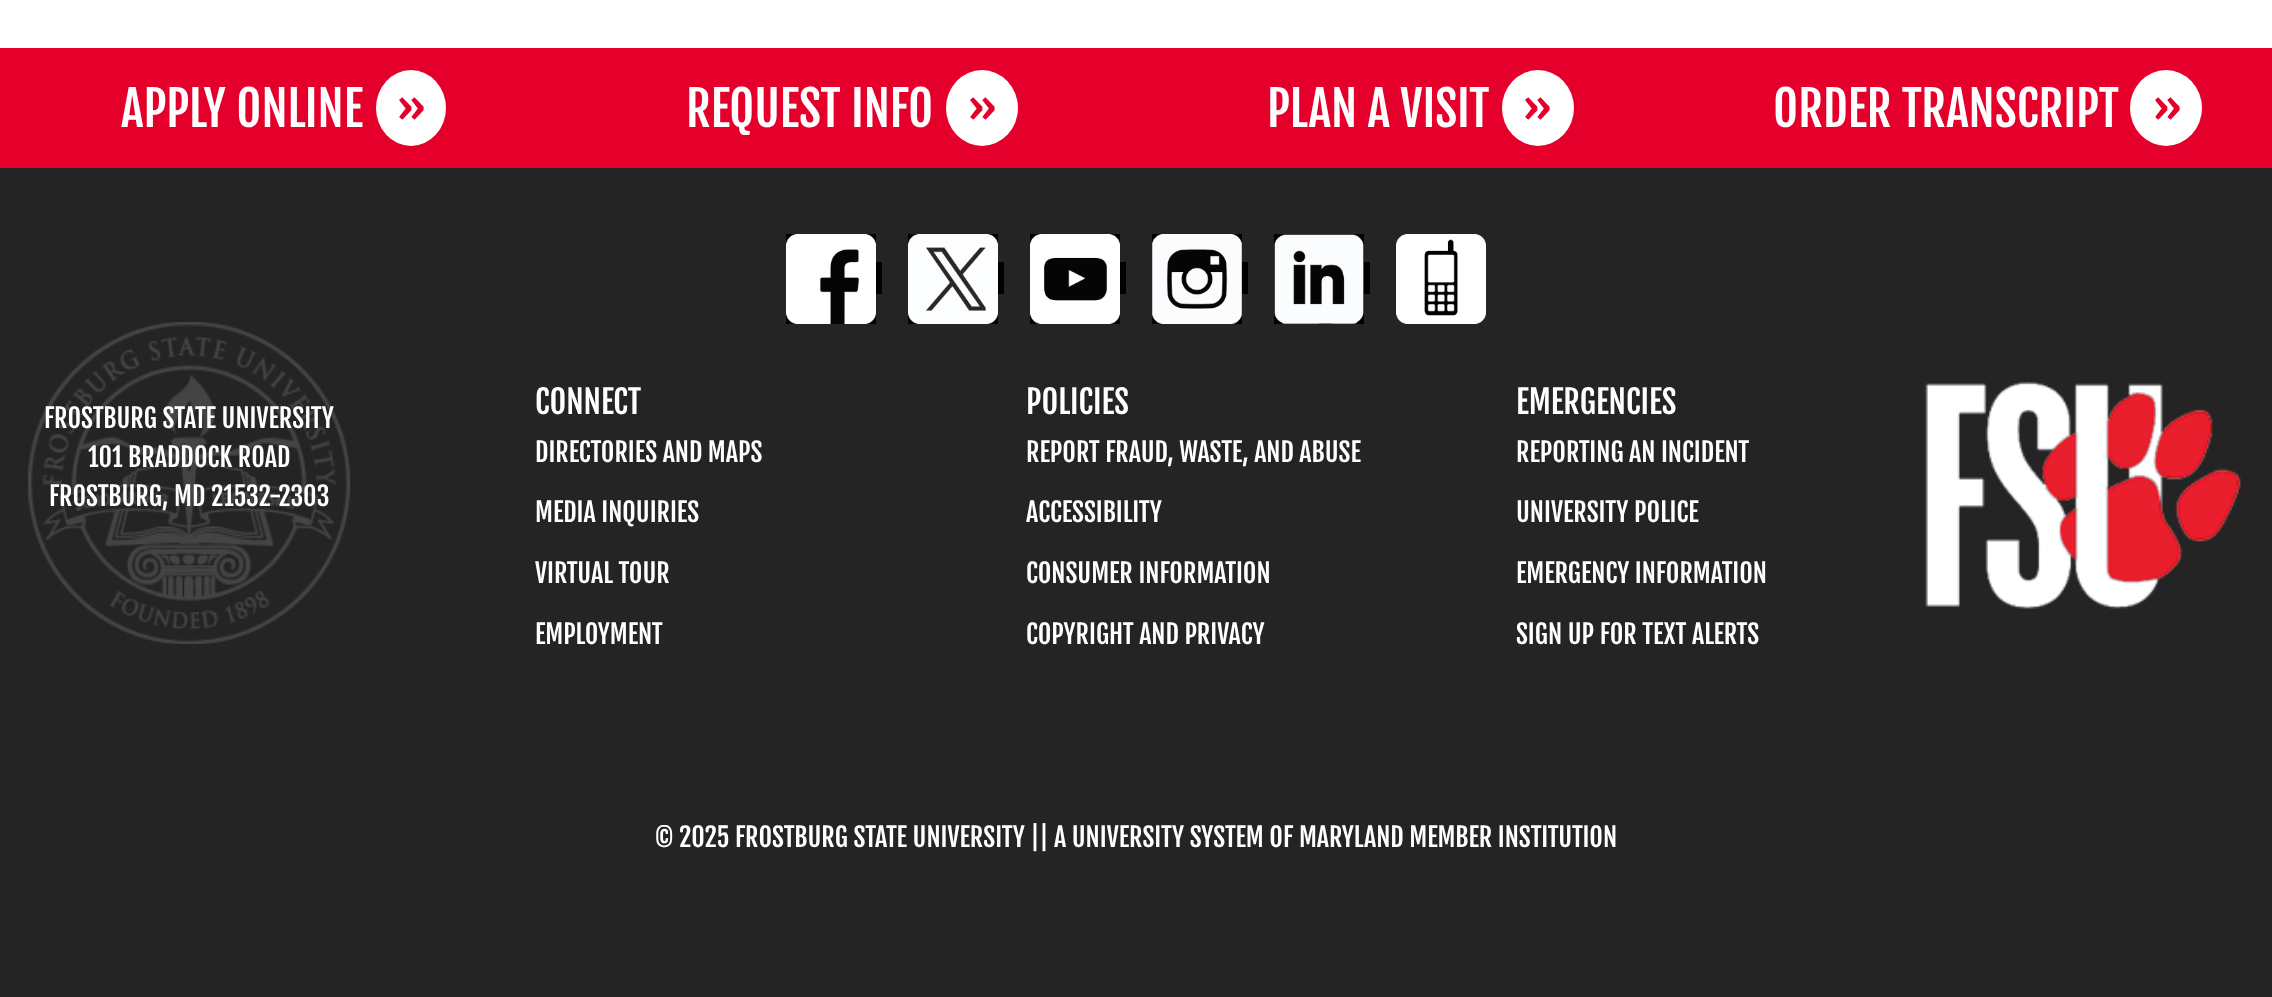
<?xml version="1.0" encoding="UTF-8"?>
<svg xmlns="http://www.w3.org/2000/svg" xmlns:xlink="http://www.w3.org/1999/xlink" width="2272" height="997">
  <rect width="100%" height="100%" fill="#ffffff" />
  <rect y="48" width="2272" height="120" fill="#e4002b" />
  <ellipse cx="411" cy="108" rx="35" ry="38" fill="#ffffff" />
  <ellipse cx="982" cy="108" rx="36" ry="38" fill="#ffffff" />
  <ellipse cx="1538" cy="108" rx="36" ry="38" fill="#ffffff" />
  <ellipse cx="2166" cy="108" rx="36" ry="38" fill="#ffffff" />
  <rect y="168" width="2272" height="829" fill="#242424" />
  <rect x="786" y="234" width="90" height="90" fill="#000000" />
  <rect x="876" y="262" width="6" height="32" fill="#000000" />
  <image x="786" y="234" width="90" height="90" xlink:href="image1.png" />
  <rect x="908" y="234" width="90" height="90" fill="#000000" />
  <rect x="998" y="262" width="6" height="32" fill="#000000" />
  <image x="908" y="234" width="90" height="90" xlink:href="image2.png" />
  <rect x="1030" y="234" width="90" height="90" fill="#000000" />
  <rect x="1120" y="262" width="6" height="32" fill="#000000" />
  <image x="1030" y="234" width="90" height="90" xlink:href="image3.png" />
  <rect x="1152" y="234" width="90" height="90" fill="#000000" />
  <rect x="1242" y="262" width="6" height="32" fill="#000000" />
  <image x="1152" y="234" width="90" height="90" xlink:href="image4.png" />
  <rect x="1274" y="234" width="90" height="90" fill="#000000" />
  <rect x="1364" y="262" width="6" height="32" fill="#000000" />
  <image x="1274" y="234" width="90" height="90" xlink:href="image5.png" />
  <image x="1396" y="234" width="90" height="90" xlink:href="image6.png" />
  <image x="28" y="322" width="322" height="322" xlink:href="image7.png" />
  <image x="1925" y="382" width="316" height="227" xlink:href="image8.png" />
  <text x="121" y="127" style="font-family: Fjalla One; font-size: 48px; fill: #ffffff">APPLY ONLINE</text>
  <text x="395" y="127" style="font-family: Fjalla One; font-size: 48px; fill: #e4002b">»</text>
  <text x="686" y="127" style="font-family: Fjalla One; font-size: 48px; fill: #ffffff">REQUEST INFO</text>
  <text x="966" y="127" style="font-family: Fjalla One; font-size: 48px; fill: #e4002b">»</text>
  <text x="1267" y="127" style="font-family: Fjalla One; font-size: 48px; fill: #ffffff">PLAN A VISIT</text>
  <text x="1521" y="127" style="font-family: Fjalla One; font-size: 48px; fill: #e4002b">»</text>
  <text x="1773" y="127" style="font-family: Fjalla One; font-size: 48px; fill: #ffffff">ORDER TRANSCRIPT</text>
  <text x="2151" y="127" style="font-family: Fjalla One; font-size: 48px; fill: #e4002b">»</text>
  <text x="44" y="428" style="font-family: Fjalla One; font-size: 26px; fill: #ffffff">FROSTBURG STATE UNIVERSITY</text>
  <text x="88" y="467" style="font-family: Fjalla One; font-size: 26px; fill: #ffffff">101 BRADDOCK ROAD</text>
  <text x="49" y="506" style="font-family: Fjalla One; font-size: 26px; fill: #ffffff">FROSTBURG, MD 21532-2303</text>
  <text x="535" y="414" style="font-family: Fjalla One; font-size: 32px; fill: #ffffff">CONNECT</text>
  <text x="535" y="462" style="font-family: Fjalla One; font-size: 26px; fill: #ffffff">DIRECTORIES AND MAPS</text>
  <text x="535" y="522" style="font-family: Fjalla One; font-size: 26px; fill: #ffffff">MEDIA INQUIRIES</text>
  <text x="535" y="583" style="font-family: Fjalla One; font-size: 26px; fill: #ffffff">VIRTUAL TOUR</text>
  <text x="535" y="644" style="font-family: Fjalla One; font-size: 26px; fill: #ffffff">EMPLOYMENT</text>
  <text x="1026" y="414" style="font-family: Fjalla One; font-size: 32px; fill: #ffffff">POLICIES</text>
  <text x="1026" y="462" style="font-family: Fjalla One; font-size: 26px; fill: #ffffff">REPORT FRAUD, WASTE, AND ABUSE</text>
  <text x="1026" y="522" style="font-family: Fjalla One; font-size: 26px; fill: #ffffff">ACCESSIBILITY</text>
  <text x="1026" y="583" style="font-family: Fjalla One; font-size: 26px; fill: #ffffff">CONSUMER INFORMATION</text>
  <text x="1026" y="644" style="font-family: Fjalla One; font-size: 26px; fill: #ffffff">COPYRIGHT AND PRIVACY</text>
  <text x="1516" y="414" style="font-family: Fjalla One; font-size: 32px; fill: #ffffff">EMERGENCIES</text>
  <text x="1516" y="462" style="font-family: Fjalla One; font-size: 26px; fill: #ffffff">REPORTING AN INCIDENT</text>
  <text x="1516" y="522" style="font-family: Fjalla One; font-size: 26px; fill: #ffffff">UNIVERSITY POLICE</text>
  <text x="1516" y="583" style="font-family: Fjalla One; font-size: 26px; fill: #ffffff">EMERGENCY INFORMATION</text>
  <text x="1516" y="644" style="font-family: Fjalla One; font-size: 26px; fill: #ffffff">SIGN UP FOR TEXT ALERTS</text>
  <text x="655" y="847" style="font-family: Fjalla One; font-size: 26px; fill: #ffffff">© 2025 FROSTBURG STATE UNIVERSITY || A UNIVERSITY SYSTEM OF MARYLAND MEMBER INSTITUTION</text>
</svg>
